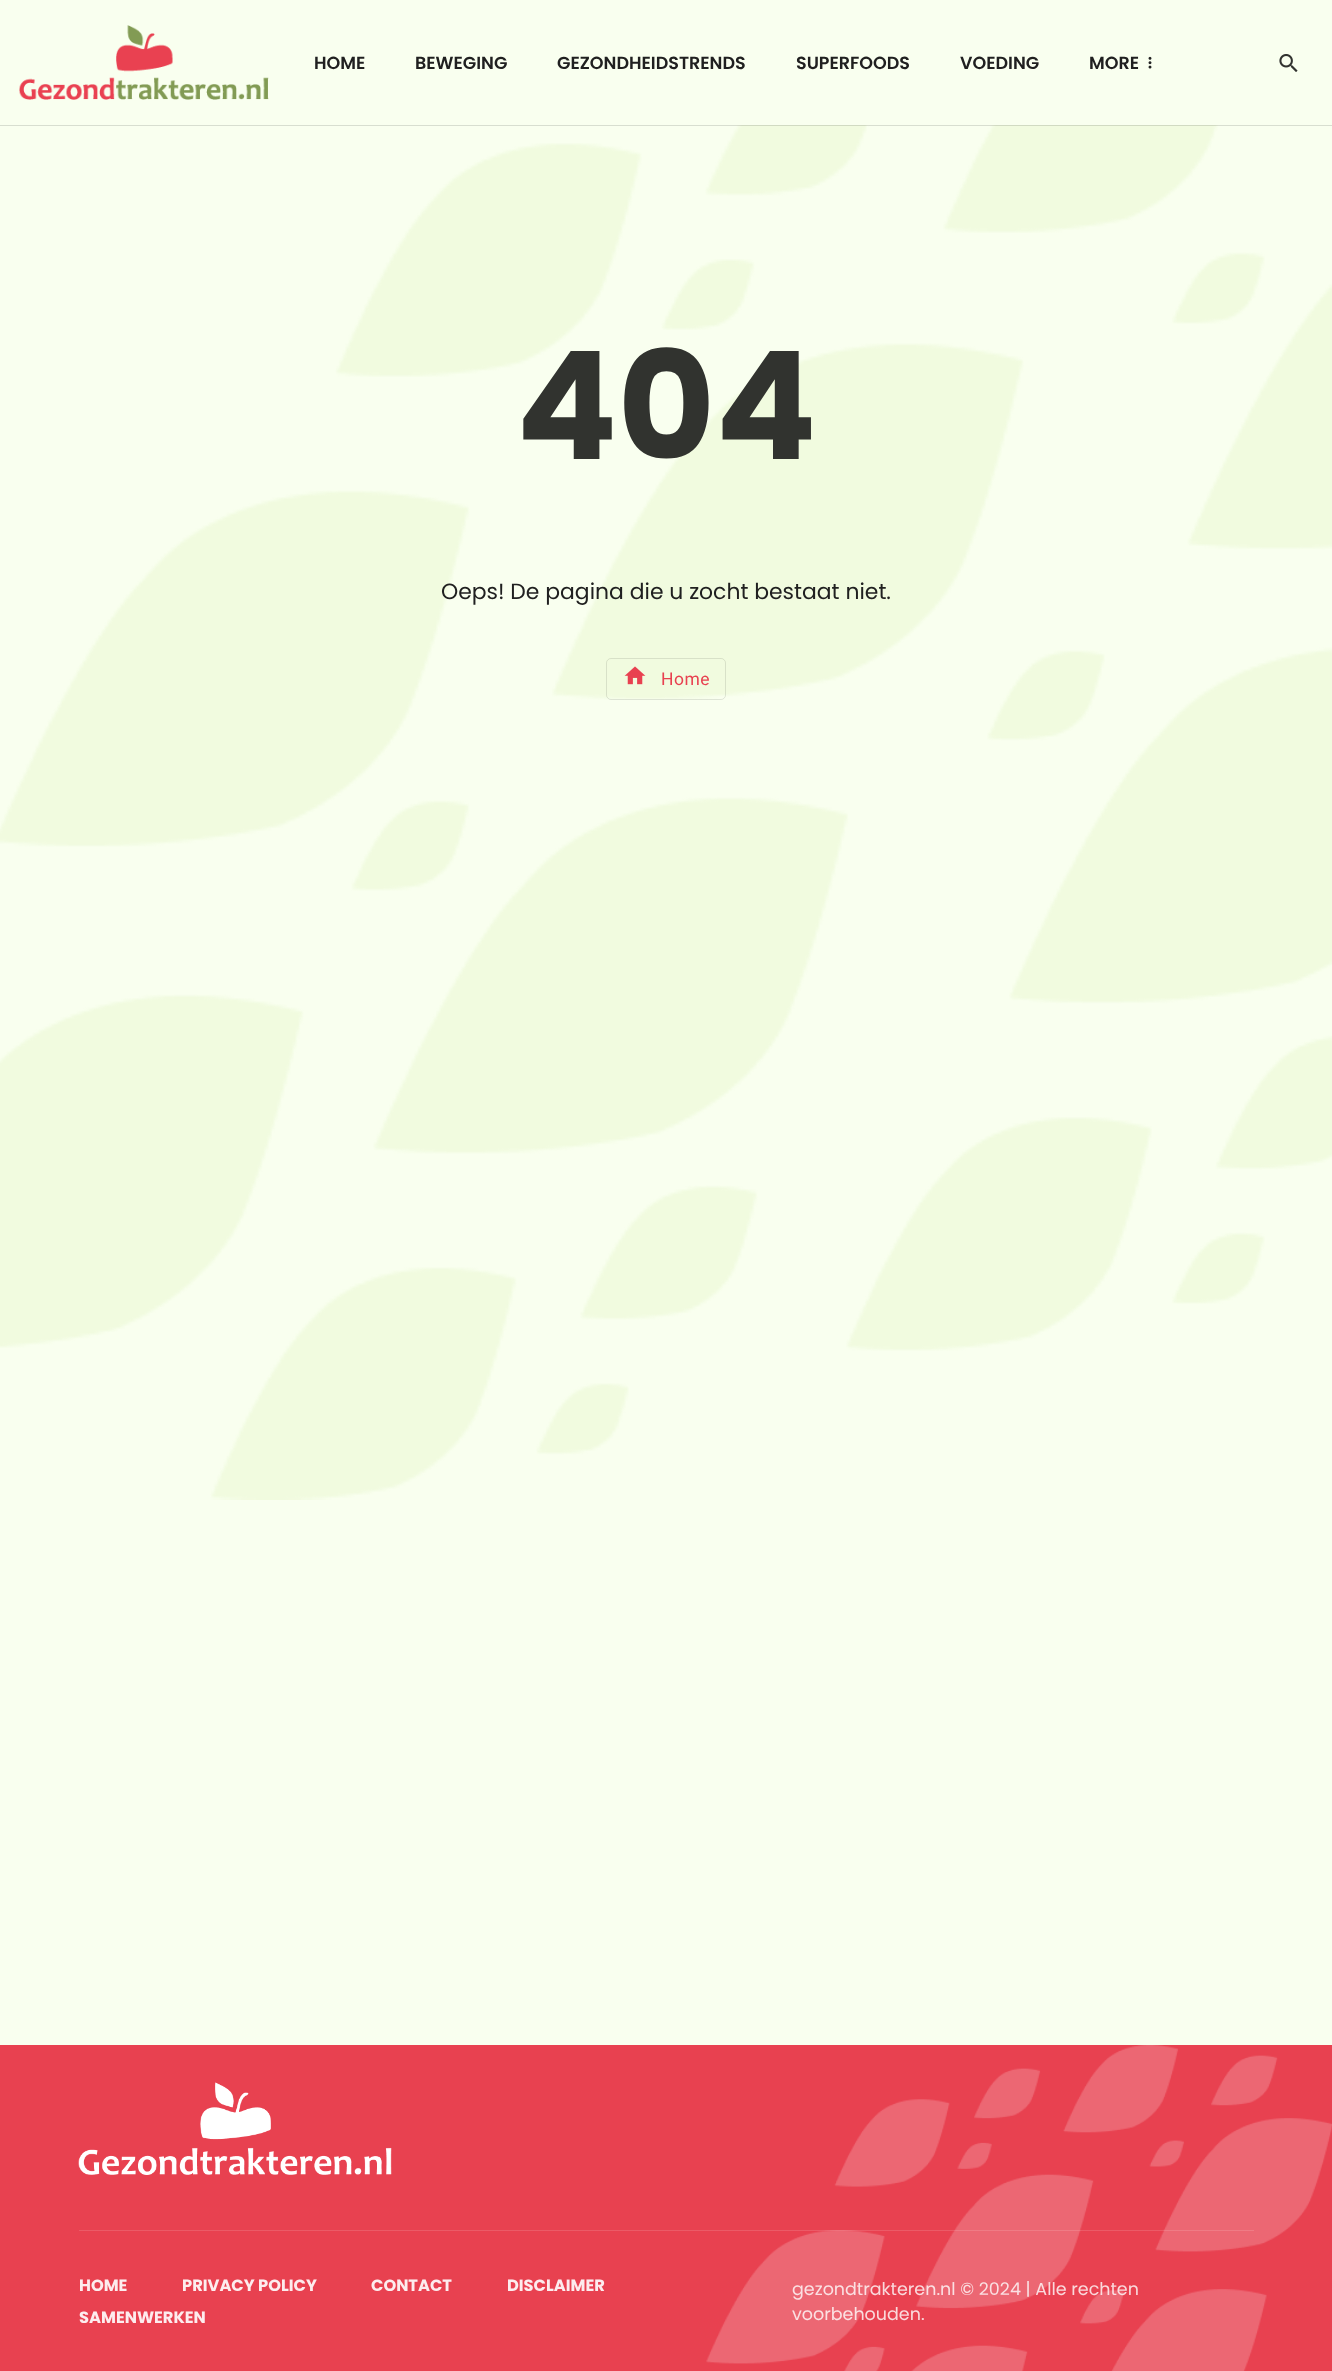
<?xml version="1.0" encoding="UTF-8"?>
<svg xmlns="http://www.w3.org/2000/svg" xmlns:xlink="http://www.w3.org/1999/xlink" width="1332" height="2371">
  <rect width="100%" height="100%" fill="#f9ffef" />
  <image x="0" y="125" width="1332" height="1375" xlink:href="image4.png" />
  <rect y="1" width="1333" height="125" fill="#000000" fill-opacity="0.13" filter="blur(0.5px)" />
  <rect width="1332" height="125" fill="#f9ffef" />
  <image x="19" y="25" width="250" height="75" xlink:href="image1.png" />
  <image x="1148" y="56" width="4" height="13" xlink:href="image2.png" />
  <image x="1279" y="54" width="19" height="18" xlink:href="image3.png" />
  <rect x="606.5" y="658.5" width="119" height="41" rx="4.5" fill="none" stroke="#000000" stroke-opacity="0.1" />
  <image x="624" y="666" width="22" height="19" xlink:href="image5.png" />
  <rect y="2045" width="1332" height="326" fill="#e84150" />
  <image x="78" y="2082" width="314" height="93" xlink:href="image7.png" />
  <rect x="79" y="2230" width="1175" height="1" fill="#eb5a67" />
  <text x="314" y="69" style="font-family: Poppins; font-size: 17.5px; font-weight: 600; fill: #202020">HOME</text>
  <text x="415" y="69" style="font-family: Poppins; font-size: 17.5px; font-weight: 600; fill: #202020">BEWEGING</text>
  <text x="557" y="69" style="font-family: Poppins; font-size: 17.5px; font-weight: 600; fill: #202020">GEZONDHEIDSTRENDS</text>
  <text x="796" y="69" style="font-family: Poppins; font-size: 17.5px; font-weight: 600; fill: #202020">SUPERFOODS</text>
  <text x="960" y="69" style="font-family: Poppins; font-size: 17.5px; font-weight: 600; fill: #202020">VOEDING</text>
  <text x="1089" y="69" style="font-family: Poppins; font-size: 17.5px; font-weight: 600; fill: #202020">MORE</text>
  <text x="516" y="459" style="font-family: Poppins; font-size: 150px; font-weight: bold; fill: #31332f">404</text>
  <text x="441" y="599" style="font-family: Poppins; font-size: 21.9px; fill: #202020">Oeps! De pagina die u zocht bestaat niet.</text>
  <text x="661" y="685" style="font-family: Roboto; font-size: 17.5px; letter-spacing: 0.5px; fill: #e84150">Home</text>
  <text x="79" y="2291" style="font-family: Poppins; font-size: 16.25px; font-weight: bold; fill: #fdecee">HOME</text>
  <text x="182" y="2291" style="font-family: Poppins; font-size: 16.25px; font-weight: bold; fill: #fdecee">PRIVACY POLICY</text>
  <text x="371" y="2291" style="font-family: Poppins; font-size: 16.25px; font-weight: bold; fill: #fdecee">CONTACT</text>
  <text x="507" y="2291" style="font-family: Poppins; font-size: 16.25px; font-weight: bold; fill: #fdecee">DISCLAIMER</text>
  <text x="79" y="2323" style="font-family: Poppins; font-size: 16.25px; font-weight: bold; fill: #fdecee">SAMENWERKEN</text>
  <text x="792" y="2295" style="font-family: Poppins; font-size: 17.5px; fill: #fad9dc">gezondtrakteren.nl © 2024 | Alle rechten</text>
  <text x="792" y="2320" style="font-family: Poppins; font-size: 17.5px; fill: #fad9dc">voorbehouden.</text>
  <image x="706" y="2045" width="626" height="326" xlink:href="image6.png" />
</svg>
